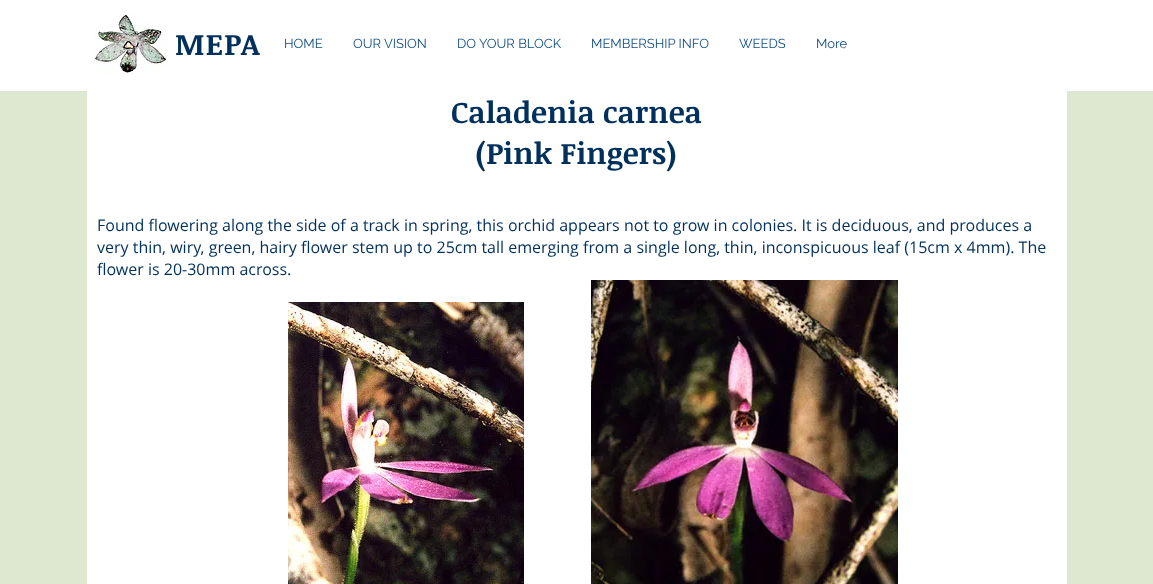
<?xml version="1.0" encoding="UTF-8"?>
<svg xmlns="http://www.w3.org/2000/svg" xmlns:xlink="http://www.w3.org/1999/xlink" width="1153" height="584">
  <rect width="100%" height="100%" fill="#dee8d1" />
  <rect width="1153" height="91" fill="#ffffff" />
  <image x="95" y="14" width="72" height="60" xlink:href="image1.png" />
  <rect x="87" y="91" width="980" height="493" fill="#ffffff" />
  <image x="288" y="302" width="236" height="282" xlink:href="image2.png" />
  <image x="591" y="280" width="307" height="304" xlink:href="image3.png" />
  <text x="175" y="55" style="font-family: Noticia Text; font-size: 30px; font-weight: bold; letter-spacing: 1px; fill: #00305b">MEPA</text>
  <text x="284" y="48" style="font-family: Raleway; font-size: 13px; fill: #0f4c85">HOME</text>
  <text x="353" y="48" style="font-family: Raleway; font-size: 13px; fill: #0f4c85">OUR VISION</text>
  <text x="457" y="48" style="font-family: Raleway; font-size: 13px; fill: #0f4c85">DO YOUR BLOCK</text>
  <text x="591" y="48" style="font-family: Raleway; font-size: 13px; fill: #0f4c85">MEMBERSHIP INFO</text>
  <text x="739" y="48" style="font-family: Raleway; font-size: 13px; fill: #0f4c85">WEEDS</text>
  <text x="816" y="48" style="font-family: Raleway; font-size: 13px; fill: #0f4c85">More</text>
  <text x="451" y="123" style="font-family: Noticia Text; font-size: 30px; font-weight: bold; fill: #00305b">Caladenia carnea</text>
  <text x="475" y="164" style="font-family: Noticia Text; font-size: 30px; font-weight: bold; fill: #00305b">(Pink Fingers)</text>
  <text x="97" y="231" style="font-family: Open Sans; font-size: 16px; fill: #00305b">Found flowering along the side of a track in spring, this orchid appears not to grow in colonies. It is deciduous, and produces a</text>
  <text x="97" y="253" style="font-family: Open Sans; font-size: 16px; fill: #00305b">very thin, wiry, green, hairy flower stem up to 25cm tall emerging from a single long, thin, inconspicuous leaf (15cm x 4mm). The</text>
  <text x="97" y="275" style="font-family: Open Sans; font-size: 16px; fill: #00305b">flower is 20-30mm across.</text>
</svg>
